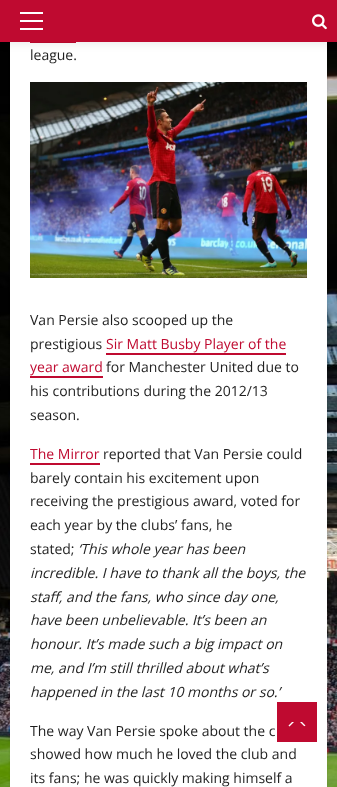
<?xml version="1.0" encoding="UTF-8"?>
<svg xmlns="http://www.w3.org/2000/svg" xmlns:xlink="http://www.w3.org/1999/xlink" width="337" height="787">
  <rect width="100%" height="100%" fill="#ffffff" />
  <image x="0" y="42" width="337" height="745" xlink:href="image1.png" />
  <rect x="10" y="-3" width="317" height="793" fill="#000000" fill-opacity="0.08" filter="blur(1px)" />
  <rect x="10" y="42" width="317" height="745" fill="#ffffff" />
  <rect x="30" y="42" width="46" height="1" fill="#bf0a30" />
  <rect y="2" width="337" height="42" fill="#000000" fill-opacity="0.08" filter="blur(4px)" />
  <rect width="337" height="42" fill="#bf0a30" />
  <rect x="20" y="20" width="23" height="2" fill="#ffffff" />
  <rect x="20" y="12" width="23" height="2" fill="#ffffff" />
  <rect x="20" y="28" width="23" height="2" fill="#ffffff" />
  <image x="312" y="14" width="15" height="16" xlink:href="image2.png" />
  <image x="30" y="82" width="277" height="196" xlink:href="image3.png" />
  <rect x="106" y="353" width="180" height="2" fill="#bf0a30" />
  <rect x="30" y="376" width="73" height="2" fill="#bf0a30" />
  <rect x="30" y="463" width="70" height="2" fill="#bf0a30" />
  <rect x="277" y="702" width="40" height="40" fill="#bf0a30" />
  <path d="M 292 727 c 3 0 11.5 1 13.5 -1.5 l -3.5 -3.5 h -10 l -3.5 3.5 c 0.5 1 2 1.5 3.5 1.5 z" fill="#ffffff" />
  <path d="M 307 729 h -20 l 10 -10 z" fill="#bf0a30" />
  <text x="30" y="60" style="font-family: Open Sans; font-size: 14px; fill: #1f1f1f">league.</text>
  <text x="30" y="325" style="font-family: Open Sans; font-size: 14px; fill: #1f1f1f">Van Persie also scooped up the</text>
  <text x="30" y="349" style="font-family: Open Sans; font-size: 14px; fill: #1f1f1f">prestigious</text>
  <text x="106" y="349" style="font-family: Open Sans; font-size: 14px; fill: #bf0a30">Sir Matt Busby Player of the</text>
  <text x="30" y="372" style="font-family: Open Sans; font-size: 14px; fill: #bf0a30">year award</text>
  <text x="106" y="372" style="font-family: Open Sans; font-size: 14px; fill: #1f1f1f">for Manchester United due to</text>
  <text x="30" y="396" style="font-family: Open Sans; font-size: 14px; fill: #1f1f1f">his contributions during the 2012/13</text>
  <text x="30" y="420" style="font-family: Open Sans; font-size: 14px; fill: #1f1f1f">season.</text>
  <text x="30" y="459" style="font-family: Open Sans; font-size: 14px; fill: #bf0a30">The Mirror</text>
  <text x="103" y="459" style="font-family: Open Sans; font-size: 14px; fill: #1f1f1f">reported that Van Persie could</text>
  <text x="30" y="483" style="font-family: Open Sans; font-size: 14px; fill: #1f1f1f">barely contain his excitement upon</text>
  <text x="30" y="506" style="font-family: Open Sans; font-size: 14px; fill: #1f1f1f">receiving the prestigious award, voted for</text>
  <text x="30" y="530" style="font-family: Open Sans; font-size: 14px; fill: #1f1f1f">each year by the clubs’ fans, he</text>
  <text x="30" y="554" style="font-family: Open Sans; font-size: 14px; fill: #1f1f1f">stated;</text>
  <text x="78" y="554" style="font-family: Open Sans; font-size: 14px; font-style: italic; fill: #1f1f1f">‘This whole year has been</text>
  <text x="30" y="578" style="font-family: Open Sans; font-size: 14px; font-style: italic; fill: #1f1f1f">incredible. I have to thank all the boys, the</text>
  <text x="30" y="602" style="font-family: Open Sans; font-size: 14px; font-style: italic; fill: #1f1f1f">staff, and the fans, who since day one,</text>
  <text x="30" y="625" style="font-family: Open Sans; font-size: 14px; font-style: italic; fill: #1f1f1f">have been unbelievable. It’s been an</text>
  <text x="30" y="649" style="font-family: Open Sans; font-size: 14px; font-style: italic; fill: #1f1f1f">honour. It’s made such a big impact on</text>
  <text x="30" y="673" style="font-family: Open Sans; font-size: 14px; font-style: italic; fill: #1f1f1f">me, and I’m still thrilled about what’s</text>
  <text x="30" y="697" style="font-family: Open Sans; font-size: 14px; font-style: italic; fill: #1f1f1f">happened in the last 10 months or so.’</text>
  <text x="30" y="736" style="font-family: Open Sans; font-size: 14px; fill: #1f1f1f">The way Van Persie spoke about the c</text>
  <text x="30" y="759" style="font-family: Open Sans; font-size: 14px; fill: #1f1f1f">showed how much he loved the club and</text>
  <text x="30" y="783" style="font-family: Open Sans; font-size: 14px; fill: #1f1f1f">its fans; he was quickly making himself a</text>
</svg>
